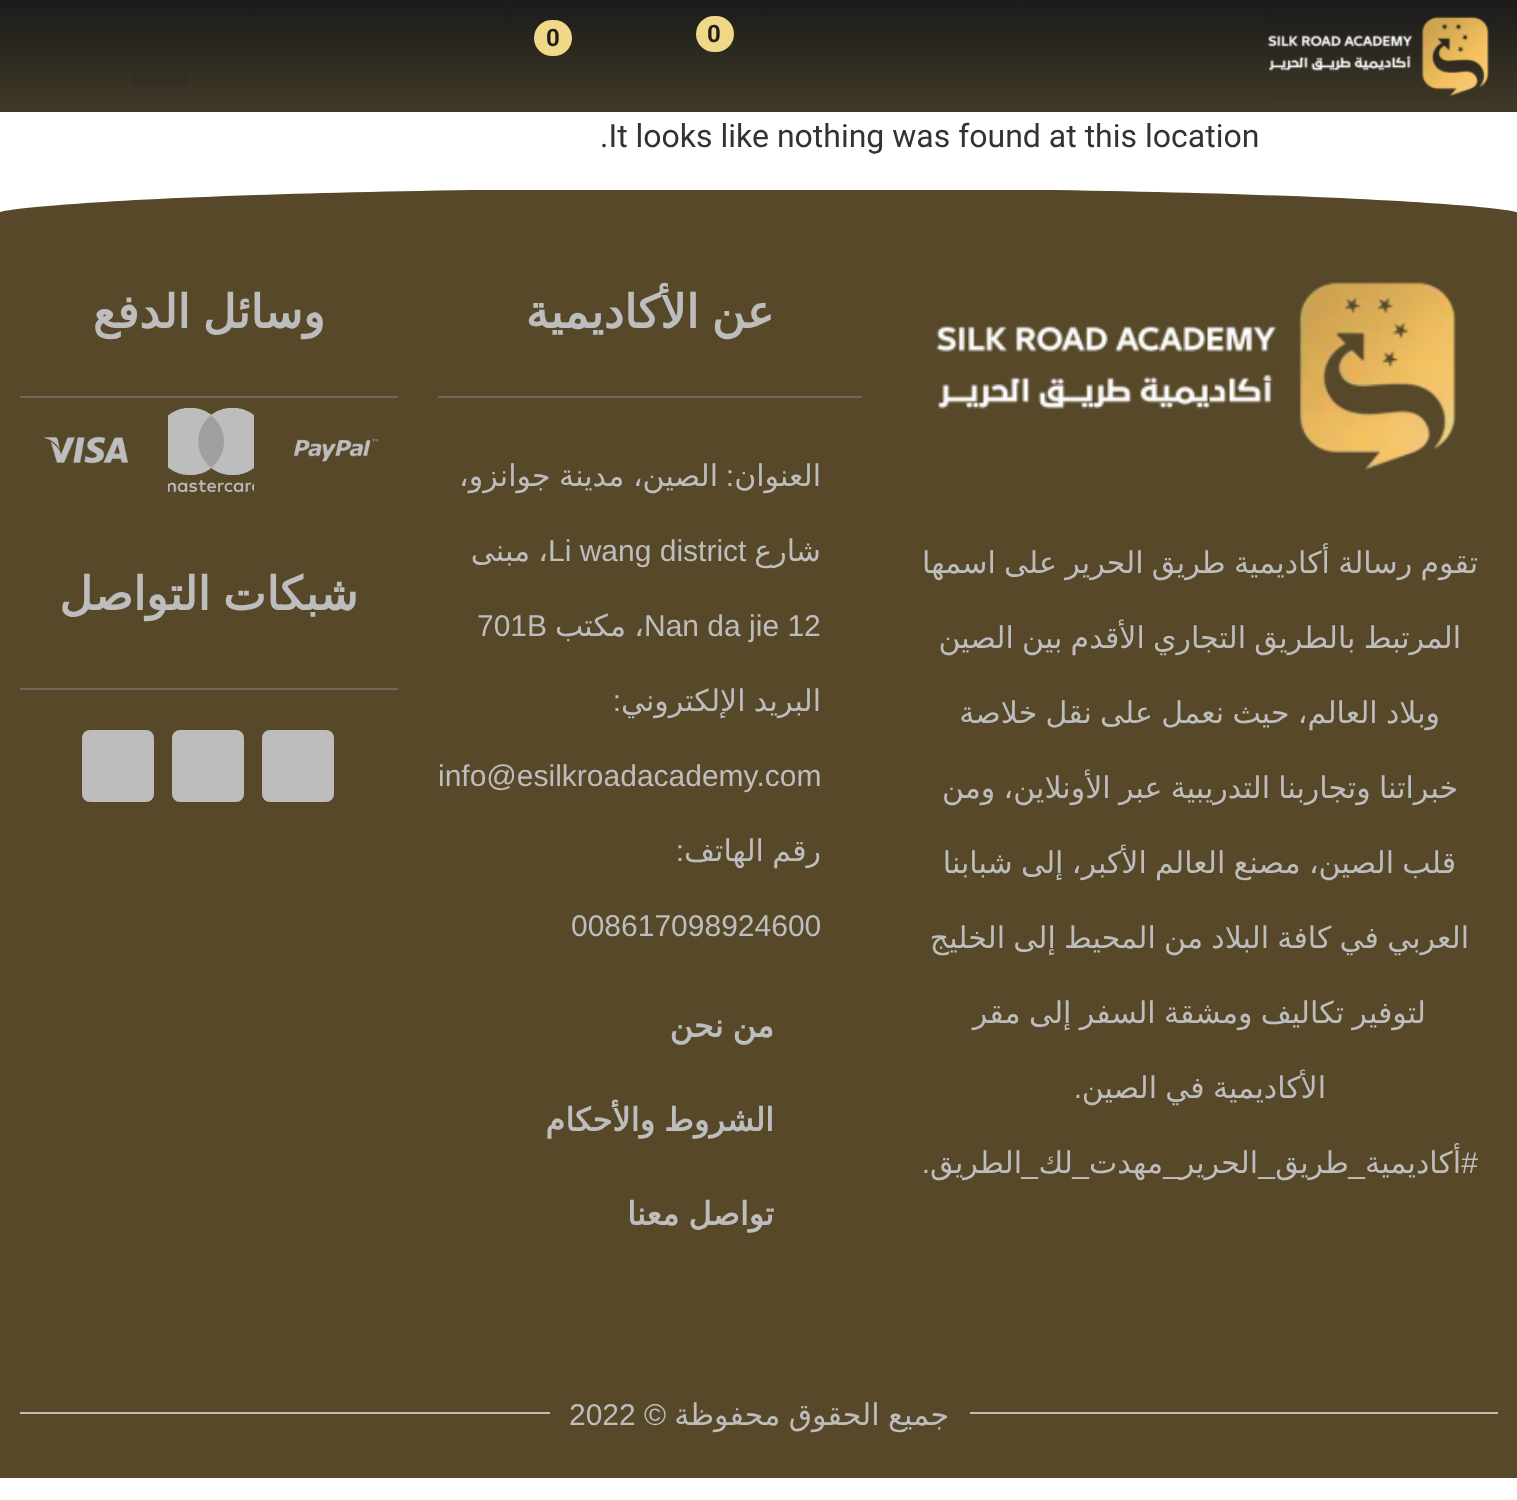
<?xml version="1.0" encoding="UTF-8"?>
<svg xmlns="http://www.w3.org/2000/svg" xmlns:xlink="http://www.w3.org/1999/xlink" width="1517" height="1500">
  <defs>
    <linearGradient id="g1" gradientUnits="userSpaceOnUse" x1="759" y1="0" x2="759" y2="112"><stop offset="0" stop-color="#1b1b1b" /><stop offset="1" stop-color="#413a27" /></linearGradient>
    <clipPath id="clip1"><rect y="188" width="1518" height="26" /></clipPath>
  </defs>
  <rect width="100%" height="100%" fill="#ffffff" />
  <rect width="1517" height="112" fill="url(#g1)" />
  <image x="1267" y="16" width="222" height="81" xlink:href="image1.png" />
  <rect x="696" y="16" width="38" height="36" rx="18" fill="#f0d889" />
  <rect x="534" y="20" width="38" height="36" rx="18" fill="#f0d889" />
  <rect x="132" y="75" width="56" height="11" fill="#000000" fill-opacity="0.05" />
  <rect y="190" width="1517" height="1288" fill="#564828" />
  <g clip-path="url(#clip1)">
    <path d="M 758 188 c 568 0 759 20 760 25 v -26 h -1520 v 26 c 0 -5 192 -25 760 -25 z" fill="#ffffff" />
  </g>
  <rect x="438" y="396" width="424" height="2" fill="#6f695b" />
  <rect x="20" y="396" width="378" height="2" fill="#6f695b" />
  <image x="294" y="438" width="84" height="24" xlink:href="image2.png" />
  <image x="168" y="408" width="86" height="84" xlink:href="image3.png" />
  <image x="44" y="436" width="84" height="28" xlink:href="image4.png" />
  <rect x="20" y="688" width="378" height="2" fill="#6f695b" />
  <rect x="262" y="730" width="72" height="72" rx="8" fill="#bdbdbd" />
  <rect x="172" y="730" width="72" height="72" rx="8" fill="#bdbdbd" />
  <rect x="82" y="730" width="72" height="72" rx="8" fill="#bdbdbd" />
  <image x="936" y="281" width="521" height="189" xlink:href="image5.png" />
  <rect x="970" y="1412" width="528" height="2" fill="#bdbdbd" />
  <rect x="20" y="1412" width="530" height="2" fill="#bdbdbd" />
  <text x="707" y="42" style="font-family: Roboto; font-size: 24px; font-weight: bold; fill: #201f1d">0</text>
  <text x="546" y="46" style="font-family: Roboto; font-size: 24px; font-weight: bold; fill: #201f1d">0</text>
  <text x="600" y="147" style="font-family: Roboto; font-size: 32px; fill: #333333">.It looks like nothing was found at this location</text>
  <text x="774" y="328" word-spacing="-2" style="font-family: DejaVu Sans; font-size: 46px; font-weight: bold; direction: rtl; fill: #bdbdbd">عن الأكاديمية</text>
  <text x="821" y="486" style="font-family: DejaVu Sans; font-size: 30px; direction: rtl; fill: #bdbdbd">العنوان</text>
  <text x="734" y="486" style="font-family: Liberation Sans; font-size: 30px; direction: rtl; fill: #bdbdbd">:</text>
  <text x="718" y="486" word-spacing="-1" style="font-family: DejaVu Sans; font-size: 30px; direction: rtl; fill: #bdbdbd">الصين، مدينة جوانزو،</text>
  <text x="821" y="561" style="font-family: DejaVu Sans; font-size: 30px; direction: rtl; fill: #bdbdbd">شارع</text>
  <text x="548" y="561" style="font-family: Liberation Sans; font-size: 30px; fill: #bdbdbd">Li wang district</text>
  <text x="548" y="561" word-spacing="-1.25" style="font-family: DejaVu Sans; font-size: 30px; direction: rtl; fill: #bdbdbd">، مبنى</text>
  <text x="644" y="636" style="font-family: Liberation Sans; font-size: 30px; fill: #bdbdbd">Nan da jie 12</text>
  <text x="644" y="636" word-spacing="-1.25" style="font-family: DejaVu Sans; font-size: 30px; direction: rtl; fill: #bdbdbd">، مكتب</text>
  <text x="477" y="636" style="font-family: Liberation Sans; font-size: 30px; fill: #bdbdbd">701B</text>
  <text x="821" y="711" word-spacing="-1.25" style="font-family: DejaVu Sans; font-size: 30px; direction: rtl; fill: #bdbdbd">البريد الإلكتروني</text>
  <text x="621" y="711" style="font-family: Liberation Sans; font-size: 30px; direction: rtl; fill: #bdbdbd">:</text>
  <text x="438" y="786" style="font-family: Liberation Sans; font-size: 30px; fill: #bdbdbd">info@esilkroadacademy.com</text>
  <text x="821" y="861" word-spacing="-1.25" style="font-family: DejaVu Sans; font-size: 30px; direction: rtl; fill: #bdbdbd">رقم الهاتف</text>
  <text x="684" y="861" style="font-family: Liberation Sans; font-size: 30px; direction: rtl; fill: #bdbdbd">:</text>
  <text x="571" y="936" style="font-family: Liberation Sans; font-size: 30px; fill: #bdbdbd">008617098924600</text>
  <text x="774" y="1037" word-spacing="-1" style="font-family: DejaVu Sans; font-size: 32px; font-weight: bold; direction: rtl; fill: #bdbdbd">من نحن</text>
  <text x="774" y="1131" word-spacing="-1" style="font-family: DejaVu Sans; font-size: 32px; font-weight: bold; direction: rtl; fill: #bdbdbd">الشروط والأحكام</text>
  <text x="774" y="1225" word-spacing="-1" style="font-family: DejaVu Sans; font-size: 32px; font-weight: bold; direction: rtl; fill: #bdbdbd">تواصل معنا</text>
  <text x="325" y="328" word-spacing="-2" style="font-family: DejaVu Sans; font-size: 46px; font-weight: bold; direction: rtl; fill: #bdbdbd">وسائل الدفع</text>
  <text x="358" y="610" word-spacing="-2" style="font-family: DejaVu Sans; font-size: 46px; font-weight: bold; direction: rtl; fill: #bdbdbd">شبكات التواصل</text>
  <text x="1478" y="573" word-spacing="-1.25" style="font-family: DejaVu Sans; font-size: 30px; direction: rtl; fill: #bdbdbd">تقوم رسالة أكاديمية طريق الحرير على اسمها</text>
  <text x="1461" y="648" word-spacing="-1.25" style="font-family: DejaVu Sans; font-size: 30px; direction: rtl; fill: #bdbdbd">المرتبط بالطريق التجاري الأقدم بين الصين</text>
  <text x="1440" y="723" word-spacing="-1.25" style="font-family: DejaVu Sans; font-size: 30px; direction: rtl; fill: #bdbdbd">وبلاد العالم، حيث نعمل على نقل خلاصة</text>
  <text x="1458" y="798" word-spacing="-1.25" style="font-family: DejaVu Sans; font-size: 30px; direction: rtl; fill: #bdbdbd">خبراتنا وتجاربنا التدريبية عبر الأونلاين، ومن</text>
  <text x="1456" y="873" word-spacing="-1.25" style="font-family: DejaVu Sans; font-size: 30px; direction: rtl; fill: #bdbdbd">قلب الصين، مصنع العالم الأكبر، إلى شبابنا</text>
  <text x="1469" y="948" word-spacing="-1.25" style="font-family: DejaVu Sans; font-size: 30px; direction: rtl; fill: #bdbdbd">العربي في كافة البلاد من المحيط إلى الخليج</text>
  <text x="1426" y="1023" word-spacing="-1.25" style="font-family: DejaVu Sans; font-size: 30px; direction: rtl; fill: #bdbdbd">لتوفير تكاليف ومشقة السفر إلى مقر</text>
  <text x="1326" y="1098" word-spacing="-1.25" style="font-family: DejaVu Sans; font-size: 30px; direction: rtl; fill: #bdbdbd">الأكاديمية في الصين</text>
  <text x="1082" y="1098" style="font-family: Liberation Sans; font-size: 30px; direction: rtl; fill: #bdbdbd">.</text>
  <text x="1478" y="1173" style="font-family: Liberation Sans; font-size: 30px; direction: rtl; fill: #bdbdbd">#</text>
  <text x="1461" y="1173" style="font-family: DejaVu Sans; font-size: 30px; direction: rtl; fill: #bdbdbd">أكاديمية</text>
  <text x="1349" y="1173" style="font-family: DejaVu Sans; font-size: 30px; direction: rtl; fill: #bdbdbd">طريق</text>
  <text x="1163" y="1173" style="font-family: DejaVu Sans; font-size: 30px; direction: rtl; fill: #bdbdbd">مهدت</text>
  <text x="1073" y="1173" style="font-family: DejaVu Sans; font-size: 30px; direction: rtl; fill: #bdbdbd">لك</text>
  <text x="1022" y="1173" style="font-family: DejaVu Sans; font-size: 30px; direction: rtl; fill: #bdbdbd">الطريق</text>
  <text x="930" y="1173" style="font-family: Liberation Sans; font-size: 30px; direction: rtl; fill: #bdbdbd">.</text>
  <text x="1365" y="1173" style="font-family: Liberation Sans; font-size: 30px; direction: rtl; fill: #bdbdbd">_</text>
  <text x="1275" y="1173" style="font-family: Liberation Sans; font-size: 30px; direction: rtl; fill: #bdbdbd">_</text>
  <text x="1180" y="1173" style="font-family: Liberation Sans; font-size: 30px; direction: rtl; fill: #bdbdbd">_</text>
  <text x="1258" y="1173" style="font-family: DejaVu Sans; font-size: 30px; direction: rtl; fill: #bdbdbd">الحرير</text>
  <text x="1089" y="1173" style="font-family: Liberation Sans; font-size: 30px; direction: rtl; fill: #bdbdbd">_</text>
  <text x="1038" y="1173" style="font-family: Liberation Sans; font-size: 30px; direction: rtl; fill: #bdbdbd">_</text>
  <text x="949" y="1425" word-spacing="-1" style="font-family: DejaVu Sans; font-size: 30px; direction: rtl; fill: #bdbdbd">جميع الحقوق محفوظة</text>
  <text x="666" y="1425" style="font-family: Liberation Sans; font-size: 30px; direction: rtl; fill: #bdbdbd">©</text>
  <text x="569" y="1425" style="font-family: Liberation Sans; font-size: 30px; fill: #bdbdbd">2022</text>
</svg>
